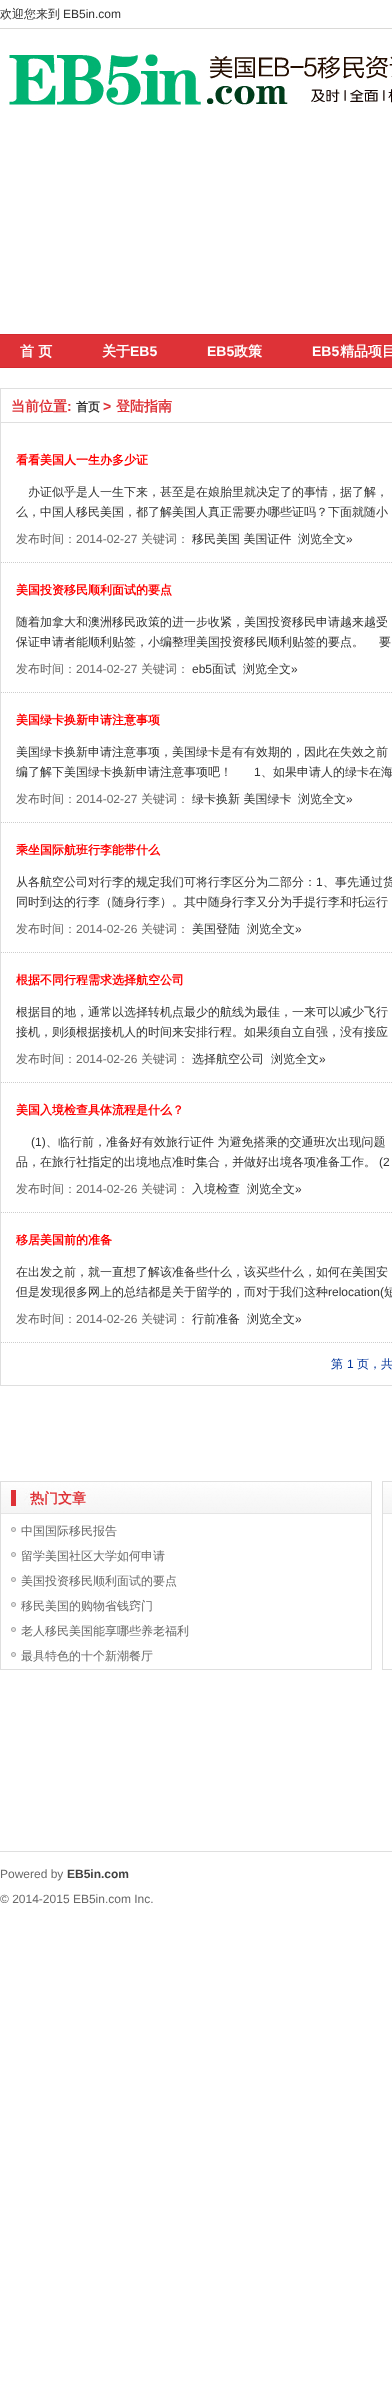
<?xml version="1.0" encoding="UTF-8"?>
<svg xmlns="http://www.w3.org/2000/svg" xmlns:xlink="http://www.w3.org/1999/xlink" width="392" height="2407">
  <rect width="100%" height="100%" fill="#ffffff" />
  <rect y="28" width="392" height="1" fill="#dad9d7" />
  <image x="9" y="54" width="383" height="51" xlink:href="image1.png" />
  <rect y="335" width="392" height="32" fill="#de3237" />
  <rect y="334" width="392" height="1" fill="#d32a2f" />
  <rect y="367" width="392" height="1" fill="#d32a2f" />
  <rect x="0.5" y="388.5" width="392" height="34" fill="none" stroke="#dfdfdf" />
  <rect y="1385" width="392" height="1" fill="#dfdfdf" />
  <rect y="423" width="1" height="963" fill="#dfdfdf" />
  <path d="M 1 562.5 h 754" fill="none" stroke="#cdcdcd" stroke-dasharray="1 1" />
  <path d="M 1 692.5 h 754" fill="none" stroke="#cdcdcd" stroke-dasharray="1 1" />
  <path d="M 1 822.5 h 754" fill="none" stroke="#cdcdcd" stroke-dasharray="1 1" />
  <path d="M 1 952.5 h 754" fill="none" stroke="#cdcdcd" stroke-dasharray="1 1" />
  <path d="M 1 1082.5 h 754" fill="none" stroke="#cdcdcd" stroke-dasharray="1 1" />
  <path d="M 1 1212.5 h 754" fill="none" stroke="#cdcdcd" stroke-dasharray="1 1" />
  <path d="M 1 1342.5 h 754" fill="none" stroke="#cdcdcd" stroke-dasharray="1 1" />
  <image x="0" y="1481" width="372" height="33" xlink:href="image2.png" />
  <rect x="371" y="1514" width="1" height="156" fill="#dfdfdf" />
  <rect y="1669" width="372" height="1" fill="#dfdfdf" />
  <rect y="1514" width="1" height="156" fill="#dfdfdf" />
  <image x="11" y="1527" width="5" height="5" xlink:href="image3.png" />
  <image x="11" y="1552" width="5" height="5" xlink:href="image3.png" />
  <image x="11" y="1577" width="5" height="5" xlink:href="image3.png" />
  <image x="11" y="1602" width="5" height="5" xlink:href="image3.png" />
  <image x="11" y="1627" width="5" height="5" xlink:href="image3.png" />
  <image x="11" y="1652" width="5" height="5" xlink:href="image3.png" />
  <image x="382" y="1481" width="10" height="33" xlink:href="image4.png" />
  <rect x="382" y="1669" width="10" height="1" fill="#dfdfdf" />
  <rect x="382" y="1514" width="1" height="156" fill="#dfdfdf" />
  <rect y="1851" width="392" height="1" fill="#dfdfdf" />
  <text x="0" y="18" style="font-family: WenQuanYi Zen Hei; font-size: 12px; font-weight: 500; fill: #333333">欢迎您来到</text>
  <text x="63" y="18" style="font-family: Liberation Sans; font-size: 12px; fill: #333333">EB5in.com</text>
  <text x="20" y="356" style="font-family: WenQuanYi Zen Hei; font-size: 14px; font-weight: bold; fill: #ffffff">首 页</text>
  <text x="102" y="356" style="font-family: WenQuanYi Zen Hei; font-size: 14px; font-weight: bold; fill: #ffffff">关于</text>
  <text x="130" y="356" style="font-family: Liberation Sans; font-size: 14px; font-weight: bold; fill: #ffffff">EB5</text>
  <text x="207" y="356" style="font-family: Liberation Sans; font-size: 14px; font-weight: bold; fill: #ffffff">EB5</text>
  <text x="234" y="356" style="font-family: WenQuanYi Zen Hei; font-size: 14px; font-weight: bold; fill: #ffffff">政策</text>
  <text x="312" y="356" style="font-family: Liberation Sans; font-size: 14px; font-weight: bold; fill: #ffffff">EB5</text>
  <text x="340" y="356" style="font-family: WenQuanYi Zen Hei; font-size: 14px; font-weight: bold; fill: #ffffff">精品项目</text>
  <text x="11" y="411" style="font-family: WenQuanYi Zen Hei; font-size: 14px; font-weight: bold; fill: #de3237">当前位置</text>
  <text x="67" y="411" style="font-family: Liberation Sans; font-size: 14px; font-weight: bold; fill: #de3237">:</text>
  <text x="76" y="411" style="font-family: WenQuanYi Zen Hei; font-size: 12px; font-weight: bold; fill: #333333">首页</text>
  <text x="103" y="411" style="font-family: Liberation Sans; font-size: 14px; font-weight: bold; fill: #de3237">&gt;</text>
  <text x="116" y="411" style="font-family: WenQuanYi Zen Hei; font-size: 14px; font-weight: bold; fill: #de3237">登陆指南</text>
  <text x="16" y="464" style="font-family: WenQuanYi Zen Hei; font-size: 12px; font-weight: bold; fill: #ff0000">看看美国人一生办多少证</text>
  <text x="28" y="496" style="font-family: WenQuanYi Zen Hei; font-size: 12px; font-weight: 500; fill: #333333">办证似乎是人一生下来，甚至是在娘胎里就决定了的事情，据了解，</text>
  <text x="16" y="516" style="font-family: WenQuanYi Zen Hei; font-size: 12px; font-weight: 500; fill: #333333">么，中国人移民美国，都了解美国人真正需要办哪些证吗？下面就随小</text>
  <text x="16" y="543" style="font-family: WenQuanYi Zen Hei; font-size: 12px; font-weight: 500; fill: #696969">发布时间：</text>
  <text x="76" y="543" style="font-family: Liberation Sans; font-size: 12px; fill: #696969">2014-02-27</text>
  <text x="141" y="543" style="font-family: WenQuanYi Zen Hei; font-size: 12px; font-weight: 500; fill: #696969">关键词：</text>
  <text x="192" y="543" style="font-family: WenQuanYi Zen Hei; font-size: 12px; font-weight: 500; fill: #333333">移民美国 美国证件</text>
  <text x="298" y="543" style="font-family: WenQuanYi Zen Hei; font-size: 12px; font-weight: 500; fill: #333333">浏览全文</text>
  <text x="346" y="543" style="font-family: Liberation Sans; font-size: 12px; fill: #333333">»</text>
  <text x="16" y="594" style="font-family: WenQuanYi Zen Hei; font-size: 12px; font-weight: bold; fill: #ff0000">美国投资移民顺利面试的要点</text>
  <text x="16" y="626" style="font-family: WenQuanYi Zen Hei; font-size: 12px; font-weight: 500; fill: #333333">随着加拿大和澳洲移民政策的进一步收紧，美国投资移民申请越来越受</text>
  <text x="16" y="646" style="font-family: WenQuanYi Zen Hei; font-size: 12px; font-weight: 500; fill: #333333">保证申请者能顺利贴签，小编整理美国投资移民顺利贴签的要点。</text>
  <text x="379" y="646" style="font-family: WenQuanYi Zen Hei; font-size: 12px; font-weight: 500; fill: #333333">要</text>
  <text x="16" y="673" style="font-family: WenQuanYi Zen Hei; font-size: 12px; font-weight: 500; fill: #696969">发布时间：</text>
  <text x="76" y="673" style="font-family: Liberation Sans; font-size: 12px; fill: #696969">2014-02-27</text>
  <text x="141" y="673" style="font-family: WenQuanYi Zen Hei; font-size: 12px; font-weight: 500; fill: #696969">关键词：</text>
  <text x="192" y="673" style="font-family: Liberation Sans; font-size: 12px; fill: #333333">eb5</text>
  <text x="212" y="673" style="font-family: WenQuanYi Zen Hei; font-size: 12px; font-weight: 500; fill: #333333">面试</text>
  <text x="243" y="673" style="font-family: WenQuanYi Zen Hei; font-size: 12px; font-weight: 500; fill: #333333">浏览全文</text>
  <text x="291" y="673" style="font-family: Liberation Sans; font-size: 12px; fill: #333333">»</text>
  <text x="16" y="724" style="font-family: WenQuanYi Zen Hei; font-size: 12px; font-weight: bold; fill: #ff0000">美国绿卡换新申请注意事项</text>
  <text x="16" y="756" style="font-family: WenQuanYi Zen Hei; font-size: 12px; font-weight: 500; fill: #333333">美国绿卡换新申请注意事项，美国绿卡是有有效期的，因此在失效之前</text>
  <text x="16" y="776" style="font-family: WenQuanYi Zen Hei; font-size: 12px; font-weight: 500; fill: #333333">编了解下美国绿卡换新申请注意事项吧！</text>
  <text x="254" y="776" style="font-family: Liberation Sans; font-size: 12px; fill: #333333">1</text>
  <text x="261" y="776" style="font-family: WenQuanYi Zen Hei; font-size: 12px; font-weight: 500; fill: #333333">、如果申请人的绿卡在海</text>
  <text x="16" y="803" style="font-family: WenQuanYi Zen Hei; font-size: 12px; font-weight: 500; fill: #696969">发布时间：</text>
  <text x="76" y="803" style="font-family: Liberation Sans; font-size: 12px; fill: #696969">2014-02-27</text>
  <text x="141" y="803" style="font-family: WenQuanYi Zen Hei; font-size: 12px; font-weight: 500; fill: #696969">关键词：</text>
  <text x="192" y="803" style="font-family: WenQuanYi Zen Hei; font-size: 12px; font-weight: 500; fill: #333333">绿卡换新 美国绿卡</text>
  <text x="298" y="803" style="font-family: WenQuanYi Zen Hei; font-size: 12px; font-weight: 500; fill: #333333">浏览全文</text>
  <text x="346" y="803" style="font-family: Liberation Sans; font-size: 12px; fill: #333333">»</text>
  <text x="16" y="854" style="font-family: WenQuanYi Zen Hei; font-size: 12px; font-weight: bold; fill: #ff0000">乘坐国际航班行李能带什么</text>
  <text x="16" y="886" style="font-family: WenQuanYi Zen Hei; font-size: 12px; font-weight: 500; fill: #333333">从各航空公司对行李的规定我们可将行李区分为二部分：</text>
  <text x="316" y="886" style="font-family: Liberation Sans; font-size: 12px; fill: #333333">1</text>
  <text x="323" y="886" style="font-family: WenQuanYi Zen Hei; font-size: 12px; font-weight: 500; fill: #333333">、事先通过货</text>
  <text x="16" y="906" style="font-family: WenQuanYi Zen Hei; font-size: 12px; font-weight: 500; fill: #333333">同时到达的行李（随身行李）。其中随身行李又分为手提行李和托运行</text>
  <text x="16" y="933" style="font-family: WenQuanYi Zen Hei; font-size: 12px; font-weight: 500; fill: #696969">发布时间：</text>
  <text x="76" y="933" style="font-family: Liberation Sans; font-size: 12px; fill: #696969">2014-02-26</text>
  <text x="141" y="933" style="font-family: WenQuanYi Zen Hei; font-size: 12px; font-weight: 500; fill: #696969">关键词：</text>
  <text x="192" y="933" style="font-family: WenQuanYi Zen Hei; font-size: 12px; font-weight: 500; fill: #333333">美国登陆</text>
  <text x="247" y="933" style="font-family: WenQuanYi Zen Hei; font-size: 12px; font-weight: 500; fill: #333333">浏览全文</text>
  <text x="295" y="933" style="font-family: Liberation Sans; font-size: 12px; fill: #333333">»</text>
  <text x="16" y="984" style="font-family: WenQuanYi Zen Hei; font-size: 12px; font-weight: bold; fill: #ff0000">根据不同行程需求选择航空公司</text>
  <text x="16" y="1016" style="font-family: WenQuanYi Zen Hei; font-size: 12px; font-weight: 500; fill: #333333">根据目的地，通常以选择转机点最少的航线为最佳，一来可以减少飞行</text>
  <text x="16" y="1036" style="font-family: WenQuanYi Zen Hei; font-size: 12px; font-weight: 500; fill: #333333">接机，则须根据接机人的时间来安排行程。如果须自立自强，没有接应</text>
  <text x="16" y="1063" style="font-family: WenQuanYi Zen Hei; font-size: 12px; font-weight: 500; fill: #696969">发布时间：</text>
  <text x="76" y="1063" style="font-family: Liberation Sans; font-size: 12px; fill: #696969">2014-02-26</text>
  <text x="141" y="1063" style="font-family: WenQuanYi Zen Hei; font-size: 12px; font-weight: 500; fill: #696969">关键词：</text>
  <text x="192" y="1063" style="font-family: WenQuanYi Zen Hei; font-size: 12px; font-weight: 500; fill: #333333">选择航空公司</text>
  <text x="271" y="1063" style="font-family: WenQuanYi Zen Hei; font-size: 12px; font-weight: 500; fill: #333333">浏览全文</text>
  <text x="319" y="1063" style="font-family: Liberation Sans; font-size: 12px; fill: #333333">»</text>
  <text x="16" y="1114" style="font-family: WenQuanYi Zen Hei; font-size: 12px; font-weight: bold; fill: #ff0000">美国入境检查具体流程是什么？</text>
  <text x="31" y="1146" style="font-family: Liberation Sans; font-size: 12px; fill: #333333">(1)</text>
  <text x="46" y="1146" style="font-family: WenQuanYi Zen Hei; font-size: 12px; font-weight: 500; fill: #333333">、临行前，准备好有效旅行证件 为避免搭乘的交通班次出现问题</text>
  <text x="16" y="1166" style="font-family: WenQuanYi Zen Hei; font-size: 12px; font-weight: 500; fill: #333333">品，在旅行社指定的出境地点准时集合，并做好出境各项准备工作。</text>
  <text x="379" y="1166" style="font-family: Liberation Sans; font-size: 12px; fill: #333333">(2</text>
  <text x="16" y="1193" style="font-family: WenQuanYi Zen Hei; font-size: 12px; font-weight: 500; fill: #696969">发布时间：</text>
  <text x="76" y="1193" style="font-family: Liberation Sans; font-size: 12px; fill: #696969">2014-02-26</text>
  <text x="141" y="1193" style="font-family: WenQuanYi Zen Hei; font-size: 12px; font-weight: 500; fill: #696969">关键词：</text>
  <text x="192" y="1193" style="font-family: WenQuanYi Zen Hei; font-size: 12px; font-weight: 500; fill: #333333">入境检查</text>
  <text x="247" y="1193" style="font-family: WenQuanYi Zen Hei; font-size: 12px; font-weight: 500; fill: #333333">浏览全文</text>
  <text x="295" y="1193" style="font-family: Liberation Sans; font-size: 12px; fill: #333333">»</text>
  <text x="16" y="1244" style="font-family: WenQuanYi Zen Hei; font-size: 12px; font-weight: bold; fill: #ff0000">移居美国前的准备</text>
  <text x="16" y="1276" style="font-family: WenQuanYi Zen Hei; font-size: 12px; font-weight: 500; fill: #333333">在出发之前，就一直想了解该准备些什么，该买些什么，如何在美国安</text>
  <text x="16" y="1296" style="font-family: WenQuanYi Zen Hei; font-size: 12px; font-weight: 500; fill: #333333">但是发现很多网上的总结都是关于留学的，而对于我们这种</text>
  <text x="328" y="1296" style="font-family: Liberation Sans; font-size: 12px; fill: #333333">relocation(</text>
  <text x="384" y="1296" style="font-family: WenQuanYi Zen Hei; font-size: 12px; font-weight: 500; fill: #333333">短</text>
  <text x="16" y="1323" style="font-family: WenQuanYi Zen Hei; font-size: 12px; font-weight: 500; fill: #696969">发布时间：</text>
  <text x="76" y="1323" style="font-family: Liberation Sans; font-size: 12px; fill: #696969">2014-02-26</text>
  <text x="141" y="1323" style="font-family: WenQuanYi Zen Hei; font-size: 12px; font-weight: 500; fill: #696969">关键词：</text>
  <text x="192" y="1323" style="font-family: WenQuanYi Zen Hei; font-size: 12px; font-weight: 500; fill: #333333">行前准备</text>
  <text x="247" y="1323" style="font-family: WenQuanYi Zen Hei; font-size: 12px; font-weight: 500; fill: #333333">浏览全文</text>
  <text x="295" y="1323" style="font-family: Liberation Sans; font-size: 12px; fill: #333333">»</text>
  <text x="331" y="1368" style="font-family: WenQuanYi Zen Hei; font-size: 12px; font-weight: 500; fill: #003399">第</text>
  <text x="347" y="1368" style="font-family: Liberation Sans; font-size: 12px; fill: #003399">1</text>
  <text x="357" y="1368" style="font-family: WenQuanYi Zen Hei; font-size: 12px; font-weight: 500; fill: #003399">页，共</text>
  <text x="30" y="1503" style="font-family: WenQuanYi Zen Hei; font-size: 14px; font-weight: bold; fill: #de3237">热门文章</text>
  <text x="21" y="1535" style="font-family: WenQuanYi Zen Hei; font-size: 12px; font-weight: 500; fill: #696969">中国国际移民报告</text>
  <text x="21" y="1560" style="font-family: WenQuanYi Zen Hei; font-size: 12px; font-weight: 500; fill: #696969">留学美国社区大学如何申请</text>
  <text x="21" y="1585" style="font-family: WenQuanYi Zen Hei; font-size: 12px; font-weight: 500; fill: #696969">美国投资移民顺利面试的要点</text>
  <text x="21" y="1610" style="font-family: WenQuanYi Zen Hei; font-size: 12px; font-weight: 500; fill: #696969">移民美国的购物省钱窍门</text>
  <text x="21" y="1635" style="font-family: WenQuanYi Zen Hei; font-size: 12px; font-weight: 500; fill: #696969">老人移民美国能享哪些养老福利</text>
  <text x="21" y="1660" style="font-family: WenQuanYi Zen Hei; font-size: 12px; font-weight: 500; fill: #696969">最具特色的十个新潮餐厅</text>
  <text x="0" y="1878" style="font-family: Liberation Sans; font-size: 12px; fill: #696969">Powered by</text>
  <text x="67" y="1878" style="font-family: Liberation Sans; font-size: 12px; font-weight: bold; fill: #414141">EB5in.com</text>
  <text x="0" y="1903" style="font-family: Liberation Sans; font-size: 12px; fill: #696969">© 2014-2015 EB5in.com Inc.</text>
</svg>
